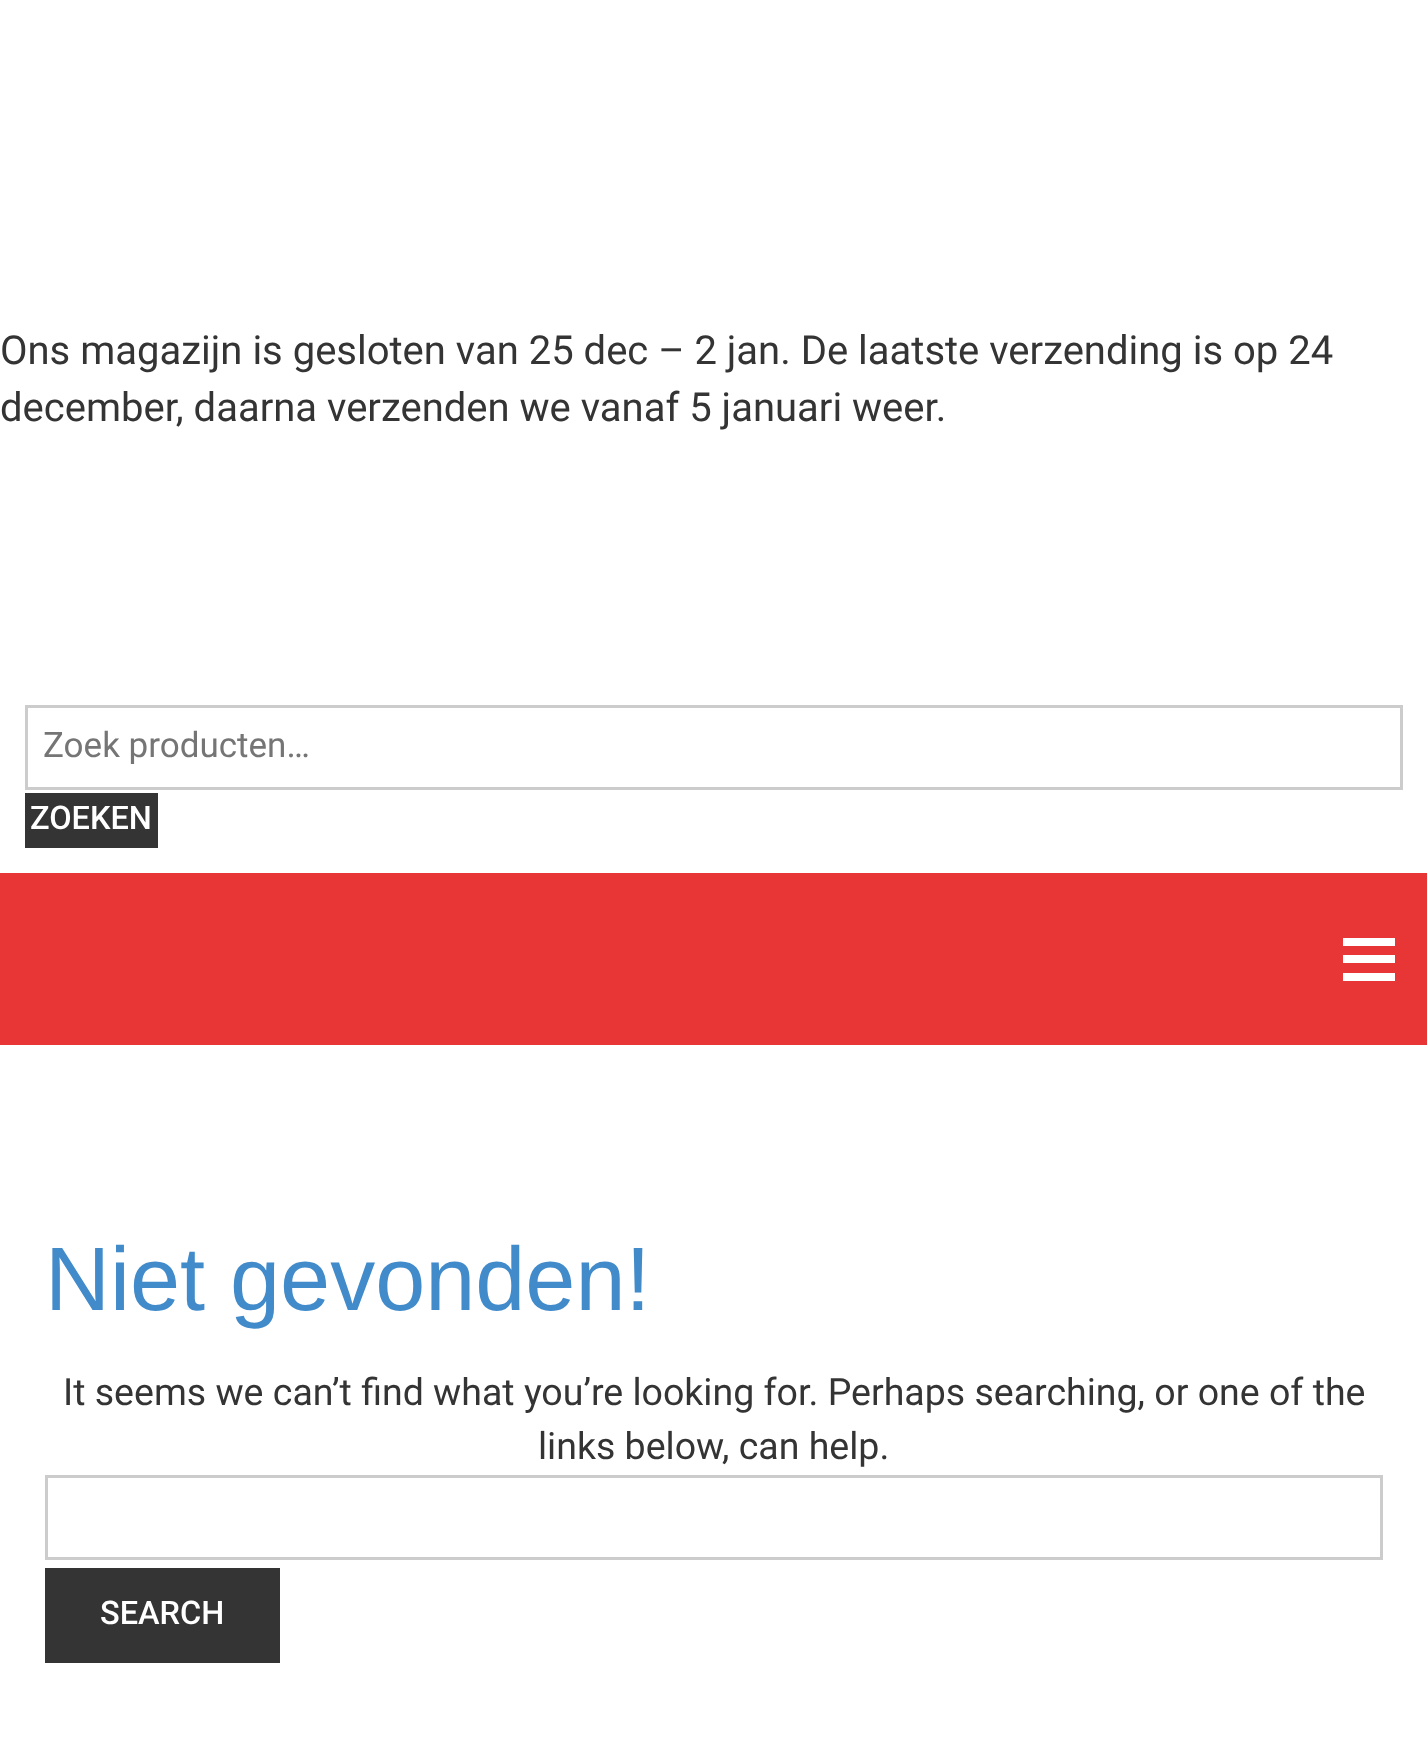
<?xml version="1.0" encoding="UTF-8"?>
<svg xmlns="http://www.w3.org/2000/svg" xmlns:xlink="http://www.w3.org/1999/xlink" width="1427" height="1760">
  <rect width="100%" height="100%" fill="#ffffff" />
  <rect x="26.5" y="706.5" width="1375" height="82" fill="none" stroke="#cccccc" stroke-width="3" />
  <rect x="27.5" y="795.5" width="128" height="50" fill="#343434" stroke="#343434" stroke-width="5" />
  <rect y="873" width="1427" height="172" fill="#e73635" />
  <rect x="1343" y="938" width="52" height="8" fill="#ffffff" />
  <rect x="1343" y="955" width="52" height="8" fill="#ffffff" />
  <rect x="1343" y="973" width="52" height="8" fill="#ffffff" />
  <rect x="46.5" y="1476.5" width="1335" height="82" fill="none" stroke="#cccccc" stroke-width="3" />
  <rect x="47.5" y="1570.5" width="230" height="90" fill="#343434" stroke="#343434" stroke-width="5" />
  <text x="0" y="364" style="font-family: Roboto; font-size: 40px; fill: #343434">Ons magazijn is gesloten van 25 dec – 2 jan. De laatste verzending is op 24</text>
  <text x="0" y="421" style="font-family: Roboto; font-size: 40px; fill: #343434">december, daarna verzenden we vanaf 5 januari weer.</text>
  <text x="43" y="757" style="font-family: Roboto; font-size: 35px; fill: #757575">Zoek producten…</text>
  <text x="30" y="829" style="font-family: Roboto; font-size: 32.5px; font-weight: 500; fill: #ffffff">ZOEKEN</text>
  <text x="45" y="1310" style="font-family: Liberation Sans; font-size: 90px; fill: #428bca">Niet gevonden!</text>
  <text x="63" y="1405" style="font-family: Roboto; font-size: 37.5px; fill: #343434">It seems we can’t find what you’re looking for. Perhaps searching, or one of the</text>
  <text x="538" y="1459" style="font-family: Roboto; font-size: 37.5px; fill: #343434">links below, can help.</text>
  <text x="100" y="1624" style="font-family: Roboto; font-size: 32.5px; font-weight: 500; fill: #ffffff">SEARCH</text>
</svg>
